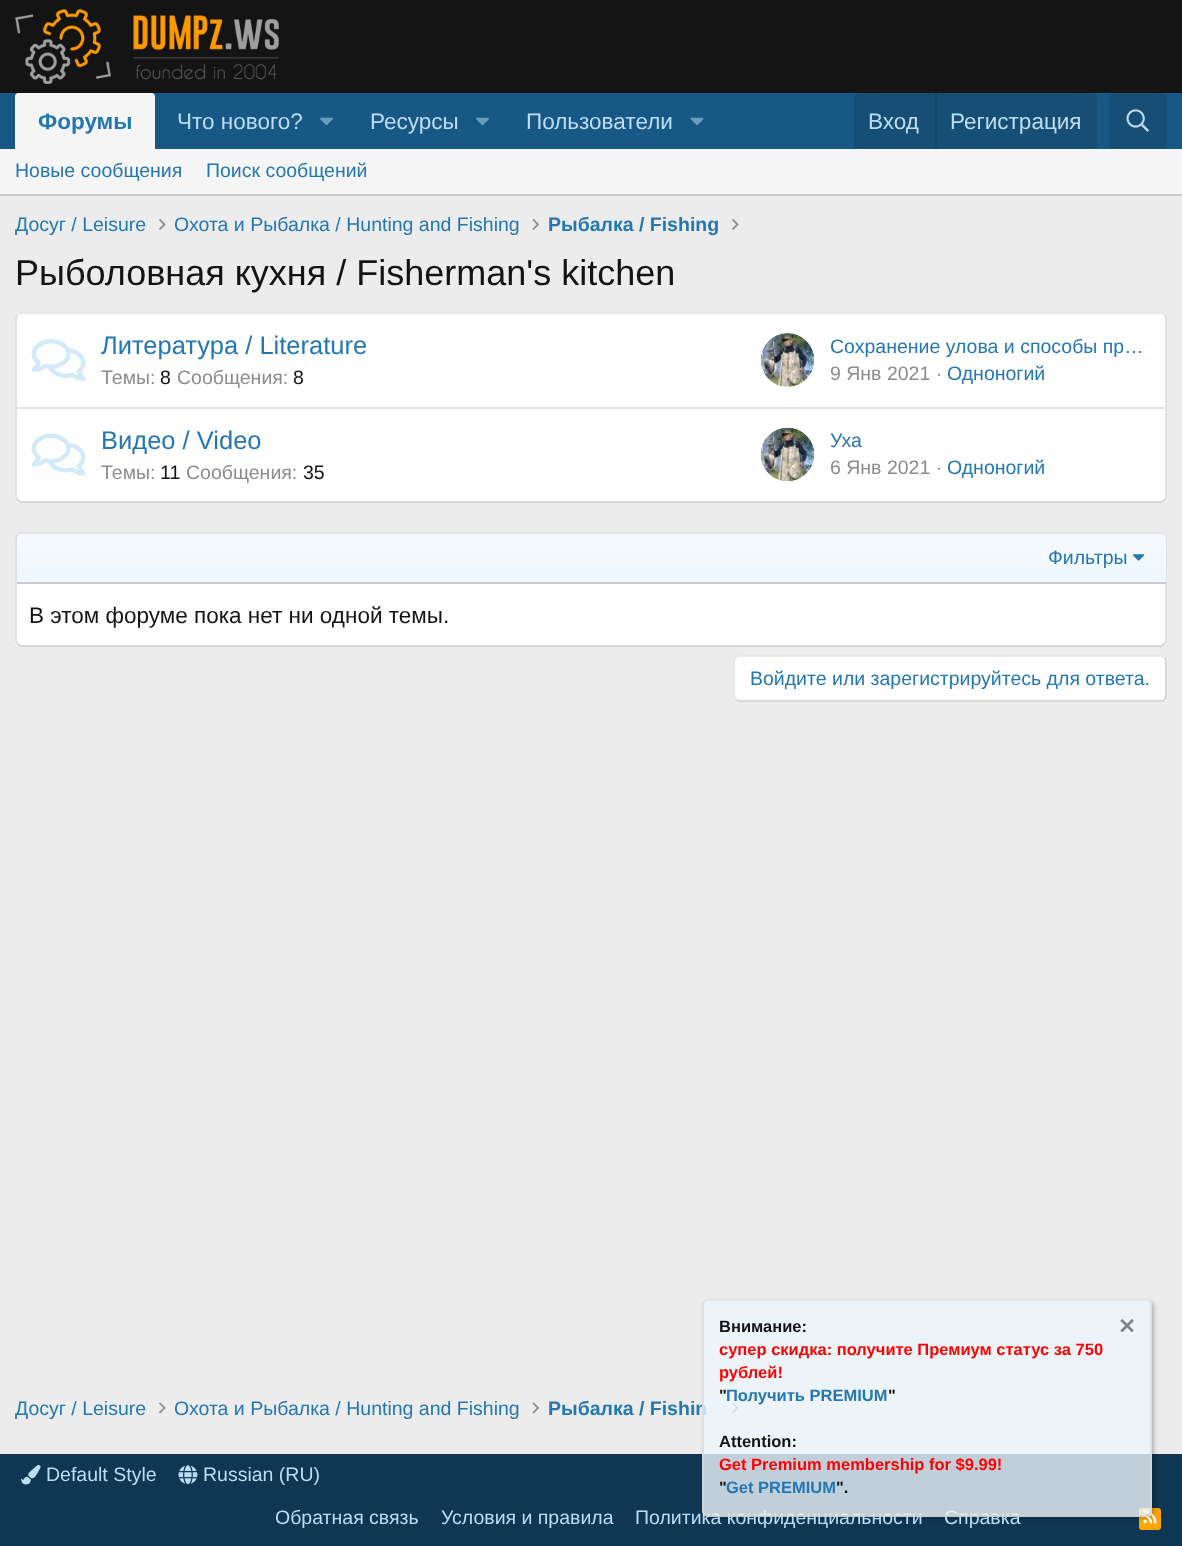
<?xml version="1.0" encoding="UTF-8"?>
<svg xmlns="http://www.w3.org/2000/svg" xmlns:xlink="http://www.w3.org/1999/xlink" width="1182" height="1546">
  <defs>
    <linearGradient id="g1" gradientUnits="userSpaceOnUse" x1="591" y1="582" x2="591" y2="534"><stop offset="0" stop-color="#edf6fd" /><stop offset="1" stop-color="#f6fafe" /></linearGradient>
    <clipPath id="clip1"><path d="M 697 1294 h 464 v 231 h -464 z m 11 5 h 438 c 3.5 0 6 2.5 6 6 v 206 c 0 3.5 -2.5 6 -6 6 h -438 c -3.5 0 -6 -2.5 -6 -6 v -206 c 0 -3.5 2.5 -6 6 -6 z" clip-rule="evenodd" /></clipPath>
  </defs>
  <rect width="100%" height="100%" fill="#ececec" />
  <rect width="1182" height="93" fill="#141414" />
  <image x="15" y="9" width="264" height="75" xlink:href="image1.png" />
  <rect y="93" width="1182" height="56" fill="#185886" />
  <path d="M 18 93 h 134 c 1.5 0 3 1.5 3 3 v 53 h -140 v -53 c 0 -1.5 1.5 -3 3 -3 z" fill="#f5f5f5" />
  <image x="320" y="117" width="13" height="9" xlink:href="image2.png" />
  <image x="476" y="117" width="13" height="9" xlink:href="image2.png" />
  <image x="690" y="117" width="14" height="8" xlink:href="image3.png" />
  <path d="M 860 93 h 231 c 3.5 0 6 2.5 6 6 v 50 h -243 v -50 c 0 -3.5 2.5 -6 6 -6 z" fill="#174e75" />
  <rect x="935" y="93" width="2" height="56" fill="#174566" />
  <path d="M 1115 93 h 46 c 3.5 0 6 2.5 6 6 v 50 h -58 v -50 c 0 -3.5 2.5 -6 6 -6 z" fill="#174e75" />
  <image x="1126" y="109" width="23" height="23" xlink:href="image4.png" />
  <rect y="149" width="1182" height="45" fill="#f5f5f5" />
  <rect y="194" width="1182" height="2" fill="#cbcbcb" />
  <image x="159" y="219" width="7" height="11" xlink:href="image5.png" />
  <image x="532" y="219" width="7" height="11" xlink:href="image6.png" />
  <image x="732" y="219" width="7" height="11" xlink:href="image5.png" />
  <rect x="15" y="312" width="1152" height="191" rx="6" fill="#fefefe" />
  <path d="M 17.5 314.5 c 1 -1 2 -1.5 3.5 -1.5 h 1140 c 1.5 0 2.5 0.5 3.5 1.5" fill="none" stroke="#dfdfdf" stroke-width="1.5" />
  <path d="M 1164.5 314.5 c 1 1 1.5 2 1.5 3.5 v 178.5 c 0 1.5 -0.5 2.5 -1.5 3.5" fill="none" stroke="#d8d8d8" stroke-width="1.5" />
  <path d="M 1164.5 500 c -1 1 -2 2 -3.5 2 h -1140 c -1.5 0 -2.5 -1 -3.5 -2" fill="none" stroke="#cbcbcb" stroke-width="1.5" />
  <path d="M 17.5 500 c -1 -1 -1.5 -2 -1.5 -3.5 v -178.5 c 0 -1.5 0.5 -2.5 1.5 -3.5" fill="none" stroke="#d8d8d8" stroke-width="1.5" />
  <image x="31" y="339" width="55" height="42" xlink:href="image7.png" />
  <image x="760" y="333" width="55" height="54" xlink:href="image8.png" />
  <rect x="17" y="407" width="1149" height="2" fill="#e7e7e7" />
  <image x="31" y="433" width="55" height="43" xlink:href="image9.png" />
  <image x="760" y="427" width="55" height="55" xlink:href="image10.png" />
  <rect x="15" y="533" width="1152" height="114" rx="6" fill="#fefefe" />
  <path d="M 17.5 535 c 1 -1 2 -2 3.5 -2 h 1140 c 1.5 0 2.5 1 3.5 2" fill="none" stroke="#dfdfdf" stroke-width="1.5" />
  <path d="M 1164.5 535 l 1.5 3 v 103 l -1.5 3" fill="none" stroke="#d8d8d8" stroke-width="1.5" />
  <path d="M 1164.5 644 c -1 1 -2 2 -3.5 2 h -1140 c -1.5 0 -2.5 -1 -3.5 -2" fill="none" stroke="#cbcbcb" stroke-width="1.5" />
  <path d="M 17.5 644 l -1.5 -3 v -103 l 1.5 -3" fill="none" stroke="#d8d8d8" stroke-width="1.5" />
  <path d="M 22 534 h 1139 c 3 0 5 2 5 5 v 43 h -1149 v -43 c 0 -3 2 -5 5 -5 z" fill="url(#g1)" />
  <rect x="17" y="582" width="1149" height="2" fill="#cbcbcb" />
  <image x="1133" y="554" width="12" height="7" xlink:href="image11.png" />
  <rect x="734" y="656" width="433" height="46" rx="6" fill="#fefefe" />
  <path d="M 1164.5 658 c 1 1 1.5 2 1.5 3.5 v 34.5 c 0 1.5 -0.5 2.5 -1.5 3.5 c -1 1 -2 1.5 -3.5 1.5 h -421.5 c -1.5 0 -2.5 -0.5 -3.5 -1.5" fill="none" stroke="#cbcbcb" stroke-width="1.5" />
  <path d="M 736 699.5 c -1 -1 -2 -2 -2 -3.5 v -34.5 c 0 -1.5 1 -2.5 2 -3.5 c 1 -1 2 -2 3.5 -2 h 421.5 c 1.5 0 2.5 1 3.5 2" fill="none" stroke="#e5e5e5" stroke-width="1.5" />
  <image x="159" y="1402" width="7" height="12" xlink:href="image12.png" />
  <image x="532" y="1402" width="7" height="12" xlink:href="image13.png" />
  <image x="732" y="1402" width="7" height="12" xlink:href="image12.png" />
  <rect y="1454" width="1182" height="92" fill="#0f3652" />
  <image x="21" y="1464" width="20" height="21" xlink:href="image14.png" />
  <image x="178" y="1465" width="20" height="20" xlink:href="image15.png" />
  <rect x="1139" y="1508" width="22" height="22" rx="3" fill="#ffa500" />
  <image x="1143" y="1509" width="14" height="15" xlink:href="image16.png" />
  <g clip-path="url(#clip1)">
    <rect x="704" y="1301" width="450" height="217" rx="6" fill="#000000" fill-opacity="0.25" filter="blur(2px)" />
  </g>
  <text x="38" y="129" style="font-family: Liberation Sans; font-size: 22.5px; font-weight: bold; fill: #2577b1">Форумы</text>
  <text x="177" y="129" style="font-family: Liberation Sans; font-size: 22.5px; fill: #bcdef5">Что нового?</text>
  <text x="370" y="129" style="font-family: Liberation Sans; font-size: 22.5px; fill: #bcdef5">Ресурсы</text>
  <text x="526" y="129" style="font-family: Liberation Sans; font-size: 22.5px; fill: #bcdef5">Пользователи</text>
  <text x="868" y="129" style="font-family: Liberation Sans; font-size: 22.5px; fill: #bcdef5">Вход</text>
  <text x="950" y="129" style="font-family: Liberation Sans; font-size: 22.5px; fill: #bcdef5">Регистрация</text>
  <text x="15" y="177" style="font-family: Liberation Sans; font-size: 19.5px; fill: #2577b1">Новые сообщения</text>
  <text x="206" y="177" style="font-family: Liberation Sans; font-size: 19.5px; fill: #2577b1">Поиск сообщений</text>
  <text x="15" y="231" style="font-family: Liberation Sans; font-size: 19.5px; fill: #2577b1">Досуг / Leisure</text>
  <text x="174" y="231" style="font-family: Liberation Sans; font-size: 19.5px; fill: #2577b1">Охота и Рыбалка / Hunting and Fishing</text>
  <text x="548" y="231" style="font-family: Liberation Sans; font-size: 19.5px; font-weight: bold; fill: #2577b1">Рыбалка / Fishing</text>
  <text x="15" y="285" style="font-family: Liberation Sans; font-size: 36px; fill: #141414">Рыболовная кухня / Fisherman's kitchen</text>
  <text x="101" y="354" style="font-family: Liberation Sans; font-size: 25.5px; fill: #2577b1">Литература / Literature</text>
  <text x="101" y="384" style="font-family: Liberation Sans; font-size: 19.5px; fill: #8c8c8c">Темы:</text>
  <text x="160" y="384" style="font-family: Liberation Sans; font-size: 19.5px; fill: #141414">8</text>
  <text x="177" y="384" style="font-family: Liberation Sans; font-size: 19.5px; fill: #8c8c8c">Сообщения:</text>
  <text x="293" y="384" style="font-family: Liberation Sans; font-size: 19.5px; fill: #141414">8</text>
  <text x="830" y="353" style="font-family: Liberation Sans; font-size: 19.5px; fill: #2577b1">Сохранение улова и способы пр…</text>
  <text x="830" y="380" style="font-family: Liberation Sans; font-size: 19.5px; fill: #8c8c8c">9 Янв 2021 ·</text>
  <text x="947" y="380" style="font-family: Liberation Sans; font-size: 19.5px; fill: #2577b1">Одноногий</text>
  <text x="101" y="449" style="font-family: Liberation Sans; font-size: 25.5px; fill: #2577b1">Видео / Video</text>
  <text x="101" y="479" style="font-family: Liberation Sans; font-size: 19.5px; fill: #8c8c8c">Темы:</text>
  <text x="160" y="479" style="font-family: Liberation Sans; font-size: 19.5px; fill: #141414">11</text>
  <text x="186" y="479" style="font-family: Liberation Sans; font-size: 19.5px; fill: #8c8c8c">Сообщения:</text>
  <text x="303" y="479" style="font-family: Liberation Sans; font-size: 19.5px; fill: #141414">35</text>
  <text x="830" y="447" style="font-family: Liberation Sans; font-size: 19.5px; fill: #2577b1">Уха</text>
  <text x="830" y="474" style="font-family: Liberation Sans; font-size: 19.5px; fill: #8c8c8c">6 Янв 2021 ·</text>
  <text x="947" y="474" style="font-family: Liberation Sans; font-size: 19.5px; fill: #2577b1">Одноногий</text>
  <text x="1048" y="564" style="font-family: Liberation Sans; font-size: 19.5px; fill: #2577b1">Фильтры</text>
  <text x="29" y="623" style="font-family: Liberation Sans; font-size: 22.5px; fill: #141414">В этом форуме пока нет ни одной темы.</text>
  <text x="750" y="685" style="font-family: Liberation Sans; font-size: 19.5px; fill: #2577b1">Войдите или зарегистрируйтесь для ответа.</text>
  <text x="15" y="1415" style="font-family: Liberation Sans; font-size: 19.5px; fill: #2577b1">Досуг / Leisure</text>
  <text x="174" y="1415" style="font-family: Liberation Sans; font-size: 19.5px; fill: #2577b1">Охота и Рыбалка / Hunting and Fishing</text>
  <text x="548" y="1415" style="font-family: Liberation Sans; font-size: 19.5px; font-weight: bold; fill: #2577b1">Рыбалка / Fishin</text>
  <text x="46" y="1481" style="font-family: Liberation Sans; font-size: 19.5px; fill: #bcdef5">Default Style</text>
  <text x="203" y="1481" style="font-family: Liberation Sans; font-size: 19.5px; fill: #bcdef5">Russian (RU)</text>
  <text x="275" y="1524" style="font-family: Liberation Sans; font-size: 19.5px; fill: #bcdef5">Обратная связь</text>
  <text x="441" y="1524" style="font-family: Liberation Sans; font-size: 19.5px; fill: #bcdef5">Условия и правила</text>
  <text x="635" y="1524" style="font-family: Liberation Sans; font-size: 19.5px; fill: #bcdef5">Политика конфиденциальности</text>
  <text x="944" y="1524" style="font-family: Liberation Sans; font-size: 19.5px; fill: #bcdef5">Справка</text>
  <rect x="702" y="1299" width="450" height="218" rx="6" fill="#edf6fd" fill-opacity="0.8" />
  <path d="M 704.5 1301.5 c 1 -1 2 -1.5 3.5 -1.5 h 438 c 1.5 0 2.5 0.5 3.5 1.5" fill="none" stroke="#dfdfdf" stroke-width="1.5" />
  <path d="M 1149.5 1301.5 c 1 1 1.5 2 1.5 3.5 v 205.5 c 0 1.5 -0.5 2.5 -1.5 3.5" fill="none" stroke="#d8d8d8" stroke-width="1.5" />
  <path d="M 1149.5 1514 c -1 1 -2 2 -3.5 2 h -438 c -1.5 0 -2.5 -1 -3.5 -2" fill="none" stroke="#cbcbcb" stroke-width="1.5" />
  <path d="M 704.5 1514 c -1 -1 -1.5 -2 -1.5 -3.5 v -205.5 c 0 -1.5 0.5 -2.5 1.5 -3.5" fill="none" stroke="#d8d8d8" stroke-width="1.5" />
  <text x="719" y="1332" style="font-family: Liberation Sans; font-size: 16.5px; font-weight: bold; fill: #141414">Внимание:</text>
  <image x="1120" y="1319" width="14" height="14" xlink:href="image17.png" />
  <text x="719" y="1355" style="font-family: Liberation Sans; font-size: 16.5px; font-weight: bold; fill: #ff0000">супер скидка: получите Премиум статус за 750</text>
  <text x="719" y="1378" style="font-family: Liberation Sans; font-size: 16.5px; font-weight: bold; fill: #ff0000">рублей!</text>
  <text x="719" y="1401" style="font-family: Liberation Sans; font-size: 16.5px; font-weight: bold; fill: #141414">"</text>
  <text x="726" y="1401" style="font-family: Liberation Sans; font-size: 16.5px; font-weight: bold; fill: #2577b1">Получить PREMIUM</text>
  <text x="888" y="1401" style="font-family: Liberation Sans; font-size: 16.5px; font-weight: bold; fill: #141414">"</text>
  <text x="719" y="1447" style="font-family: Liberation Sans; font-size: 16.5px; font-weight: bold; fill: #141414">Attention:</text>
  <text x="719" y="1470" style="font-family: Liberation Sans; font-size: 16.5px; font-weight: bold; fill: #ff0000">Get Premium membership for $9.99!</text>
  <text x="719" y="1493" style="font-family: Liberation Sans; font-size: 16.5px; font-weight: bold; fill: #141414">"</text>
  <text x="726" y="1493" style="font-family: Liberation Sans; font-size: 16.5px; font-weight: bold; fill: #2577b1">Get PREMIUM</text>
  <text x="836" y="1493" style="font-family: Liberation Sans; font-size: 16.5px; font-weight: bold; fill: #141414">".</text>
</svg>
